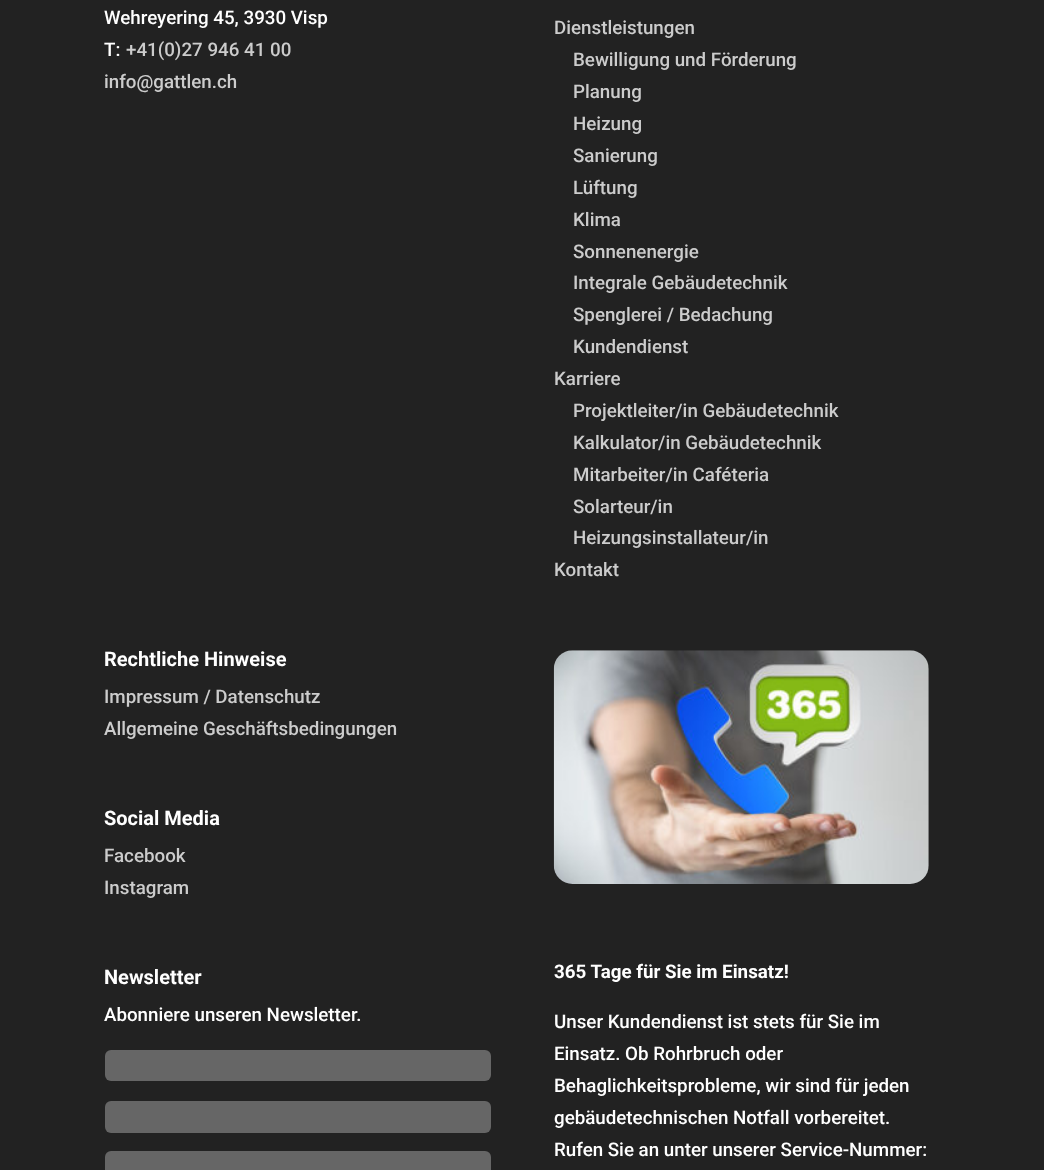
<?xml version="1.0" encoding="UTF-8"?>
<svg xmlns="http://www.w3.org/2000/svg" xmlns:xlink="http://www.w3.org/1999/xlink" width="1044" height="1170">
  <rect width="100%" height="100%" fill="#222222" />
  <rect x="105" y="1050" width="386" height="31" rx="6" fill="#666666" />
  <rect x="105" y="1101" width="386" height="32" rx="6" fill="#666666" />
  <rect x="105" y="1151" width="386" height="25" rx="6" fill="#666666" />
  <image x="553" y="650" width="376" height="234" xlink:href="image1.png" />
  <text x="104" y="24" style="font-family: Roboto; font-size: 18.75px; font-weight: 500; fill: #ffffff">Wehreyering 45, 3930 Visp</text>
  <text x="104" y="56" style="font-family: Roboto; font-size: 18.75px; font-weight: 500; fill: #ffffff">T:</text>
  <text x="126" y="56" style="font-family: Roboto; font-size: 18.75px; font-weight: 500; fill: #cccccc">+41(0)27 946 41 00</text>
  <text x="104" y="88" style="font-family: Roboto; font-size: 18.75px; font-weight: 500; fill: #cccccc">info@gattlen.ch</text>
  <text x="554" y="34" style="font-family: Roboto; font-size: 18.75px; font-weight: 500; fill: #cccccc">Dienstleistungen</text>
  <text x="573" y="66" style="font-family: Roboto; font-size: 18.75px; font-weight: 500; fill: #cccccc">Bewilligung und Förderung</text>
  <text x="573" y="98" style="font-family: Roboto; font-size: 18.75px; font-weight: 500; fill: #cccccc">Planung</text>
  <text x="573" y="130" style="font-family: Roboto; font-size: 18.75px; font-weight: 500; fill: #cccccc">Heizung</text>
  <text x="573" y="162" style="font-family: Roboto; font-size: 18.75px; font-weight: 500; fill: #cccccc">Sanierung</text>
  <text x="573" y="194" style="font-family: Roboto; font-size: 18.75px; font-weight: 500; fill: #cccccc">Lüftung</text>
  <text x="573" y="226" style="font-family: Roboto; font-size: 18.75px; font-weight: 500; fill: #cccccc">Klima</text>
  <text x="573" y="258" style="font-family: Roboto; font-size: 18.75px; font-weight: 500; fill: #cccccc">Sonnenenergie</text>
  <text x="573" y="289" style="font-family: Roboto; font-size: 18.75px; font-weight: 500; fill: #cccccc">Integrale Gebäudetechnik</text>
  <text x="573" y="321" style="font-family: Roboto; font-size: 18.75px; font-weight: 500; fill: #cccccc">Spenglerei / Bedachung</text>
  <text x="573" y="353" style="font-family: Roboto; font-size: 18.75px; font-weight: 500; fill: #cccccc">Kundendienst</text>
  <text x="554" y="385" style="font-family: Roboto; font-size: 18.75px; font-weight: 500; fill: #cccccc">Karriere</text>
  <text x="573" y="417" style="font-family: Roboto; font-size: 18.75px; font-weight: 500; fill: #cccccc">Projektleiter/in Gebäudetechnik</text>
  <text x="573" y="449" style="font-family: Roboto; font-size: 18.75px; font-weight: 500; fill: #cccccc">Kalkulator/in Gebäudetechnik</text>
  <text x="573" y="481" style="font-family: Roboto; font-size: 18.75px; font-weight: 500; fill: #cccccc">Mitarbeiter/in Caféteria</text>
  <text x="573" y="513" style="font-family: Roboto; font-size: 18.75px; font-weight: 500; fill: #cccccc">Solarteur/in</text>
  <text x="573" y="544" style="font-family: Roboto; font-size: 18.75px; font-weight: 500; fill: #cccccc">Heizungsinstallateur/in</text>
  <text x="554" y="576" style="font-family: Roboto; font-size: 18.75px; font-weight: 500; fill: #cccccc">Kontakt</text>
  <text x="104" y="666" style="font-family: Roboto; font-size: 20px; font-weight: bold; fill: #ffffff">Rechtliche Hinweise</text>
  <text x="104" y="703" style="font-family: Roboto; font-size: 18.75px; font-weight: 500; fill: #cccccc">Impressum / Datenschutz</text>
  <text x="104" y="735" style="font-family: Roboto; font-size: 18.75px; font-weight: 500; fill: #cccccc">Allgemeine Geschäftsbedingungen</text>
  <text x="104" y="825" style="font-family: Roboto; font-size: 20px; font-weight: bold; fill: #ffffff">Social Media</text>
  <text x="104" y="862" style="font-family: Roboto; font-size: 18.75px; font-weight: 500; fill: #cccccc">Facebook</text>
  <text x="104" y="894" style="font-family: Roboto; font-size: 18.75px; font-weight: 500; fill: #cccccc">Instagram</text>
  <text x="104" y="984" style="font-family: Roboto; font-size: 20px; font-weight: bold; fill: #ffffff">Newsletter</text>
  <text x="104" y="1021" style="font-family: Roboto; font-size: 18.75px; font-weight: 500; fill: #ffffff">Abonniere unseren Newsletter.</text>
  <text x="554" y="978" style="font-family: Roboto; font-size: 18.75px; font-weight: bold; fill: #ffffff">365 Tage für Sie im Einsatz!</text>
  <text x="554" y="1028" style="font-family: Roboto; font-size: 18.75px; font-weight: 500; fill: #ffffff">Unser Kundendienst ist stets für Sie im</text>
  <text x="554" y="1060" style="font-family: Roboto; font-size: 18.75px; font-weight: 500; fill: #ffffff">Einsatz. Ob Rohrbruch oder</text>
  <text x="554" y="1092" style="font-family: Roboto; font-size: 18.75px; font-weight: 500; fill: #ffffff">Behaglichkeitsprobleme, wir sind für jeden</text>
  <text x="554" y="1124" style="font-family: Roboto; font-size: 18.75px; font-weight: 500; fill: #ffffff">gebäudetechnischen Notfall vorbereitet.</text>
  <text x="554" y="1156" style="font-family: Roboto; font-size: 18.75px; font-weight: 500; fill: #ffffff">Rufen Sie an unter unserer Service-Nummer:</text>
</svg>
